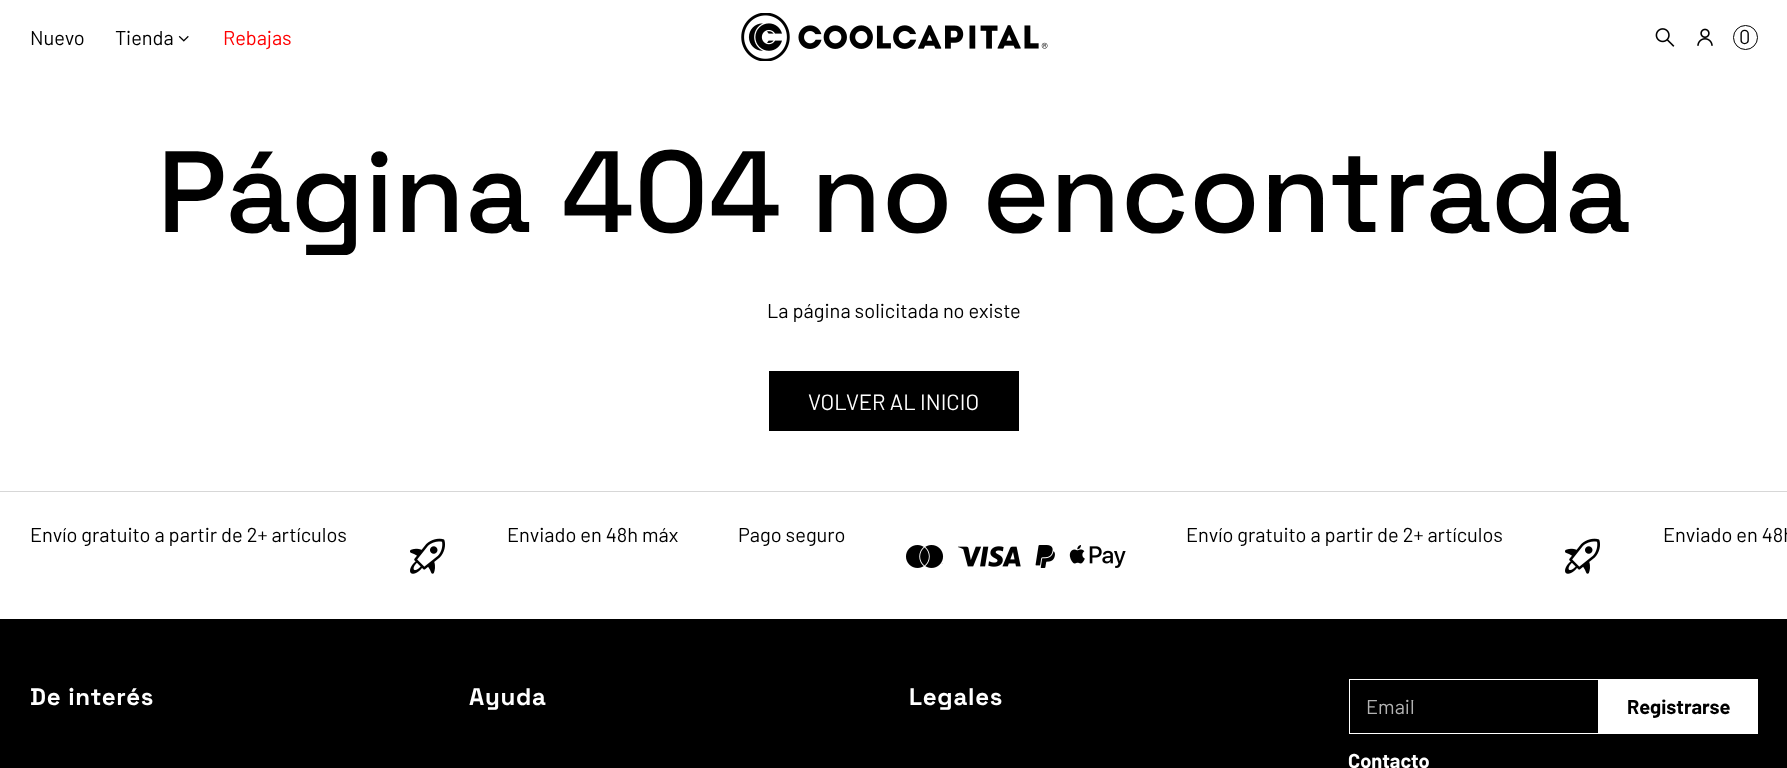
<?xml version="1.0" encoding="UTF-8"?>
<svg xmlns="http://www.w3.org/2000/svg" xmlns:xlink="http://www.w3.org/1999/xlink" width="1787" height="768">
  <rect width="100%" height="100%" fill="#ffffff" />
  <image x="178" y="35" width="11" height="7" xlink:href="image1.png" />
  <image x="741" y="13" width="307" height="48" xlink:href="image2.png" />
  <image x="1655" y="28" width="20" height="19" xlink:href="image3.png" />
  <image x="1697" y="28" width="16" height="18" xlink:href="image4.png" />
  <circle cx="1745.5" cy="37.5" r="12" fill="none" stroke="#000000" />
  <rect x="769" y="371" width="250" height="60" fill="#000000" />
  <rect y="491" width="1787" height="1" fill="#d7d7d7" />
  <image x="410" y="538" width="35" height="36" xlink:href="image5.png" />
  <image x="906" y="545" width="220" height="23" xlink:href="image6.png" />
  <image x="1565" y="538" width="35" height="36" xlink:href="image5.png" />
  <rect y="619" width="1787" height="149" fill="#000000" />
  <rect x="1349.5" y="679.5" width="249" height="54" fill="none" stroke="#ffffff" />
  <rect x="1599" y="679" width="159" height="55" fill="#ffffff" />
  <text x="30" y="45" style="font-family: Barlow; font-size: 20px; fill: #000000">Nuevo</text>
  <text x="115" y="45" style="font-family: Barlow; font-size: 20px; fill: #000000">Tienda</text>
  <text x="223" y="45" style="font-family: Barlow; font-size: 20px; fill: #ff0000">Rebajas</text>
  <text x="1739" y="44" style="font-family: Barlow; font-size: 20px; fill: #000000">0</text>
  <text x="157" y="232" style="font-family: Space Grotesk; font-size: 115.5px; font-weight: 500; fill: #000000">Página 404 no encontrada</text>
  <text x="767" y="318" style="font-family: Barlow; font-size: 20px; fill: #000000">La página solicitada no existe</text>
  <text x="808" y="410" style="font-family: Barlow; font-size: 22px; fill: #ffffff">VOLVER AL INICIO</text>
  <text x="30" y="542" style="font-family: Barlow; font-size: 20px; fill: #000000">Envío gratuito a partir de 2+ artículos</text>
  <text x="507" y="542" style="font-family: Barlow; font-size: 20px; fill: #000000">Enviado en 48h máx</text>
  <text x="738" y="542" style="font-family: Barlow; font-size: 20px; fill: #000000">Pago seguro</text>
  <text x="1186" y="542" style="font-family: Barlow; font-size: 20px; fill: #000000">Envío gratuito a partir de 2+ artículos</text>
  <text x="1663" y="542" style="font-family: Barlow; font-size: 20px; fill: #000000">Enviado en 48h</text>
  <text x="30" y="705" style="font-family: Space Grotesk; font-size: 24px; font-weight: bold; letter-spacing: 0.75px; fill: #ffffff">De interés</text>
  <text x="469" y="705" style="font-family: Space Grotesk; font-size: 24px; font-weight: bold; letter-spacing: 0.75px; fill: #ffffff">Ayuda</text>
  <text x="909" y="705" style="font-family: Space Grotesk; font-size: 24px; font-weight: bold; letter-spacing: 0.75px; fill: #ffffff">Legales</text>
  <text x="1366" y="714" style="font-family: Barlow; font-size: 20px; fill: #b3b3b3">Email</text>
  <text x="1627" y="714" style="font-family: Barlow; font-size: 20px; font-weight: bold; fill: #000000">Registrarse</text>
  <text x="1348" y="768" style="font-family: Barlow; font-size: 20px; font-weight: bold; fill: #ffffff">Contacto</text>
</svg>
